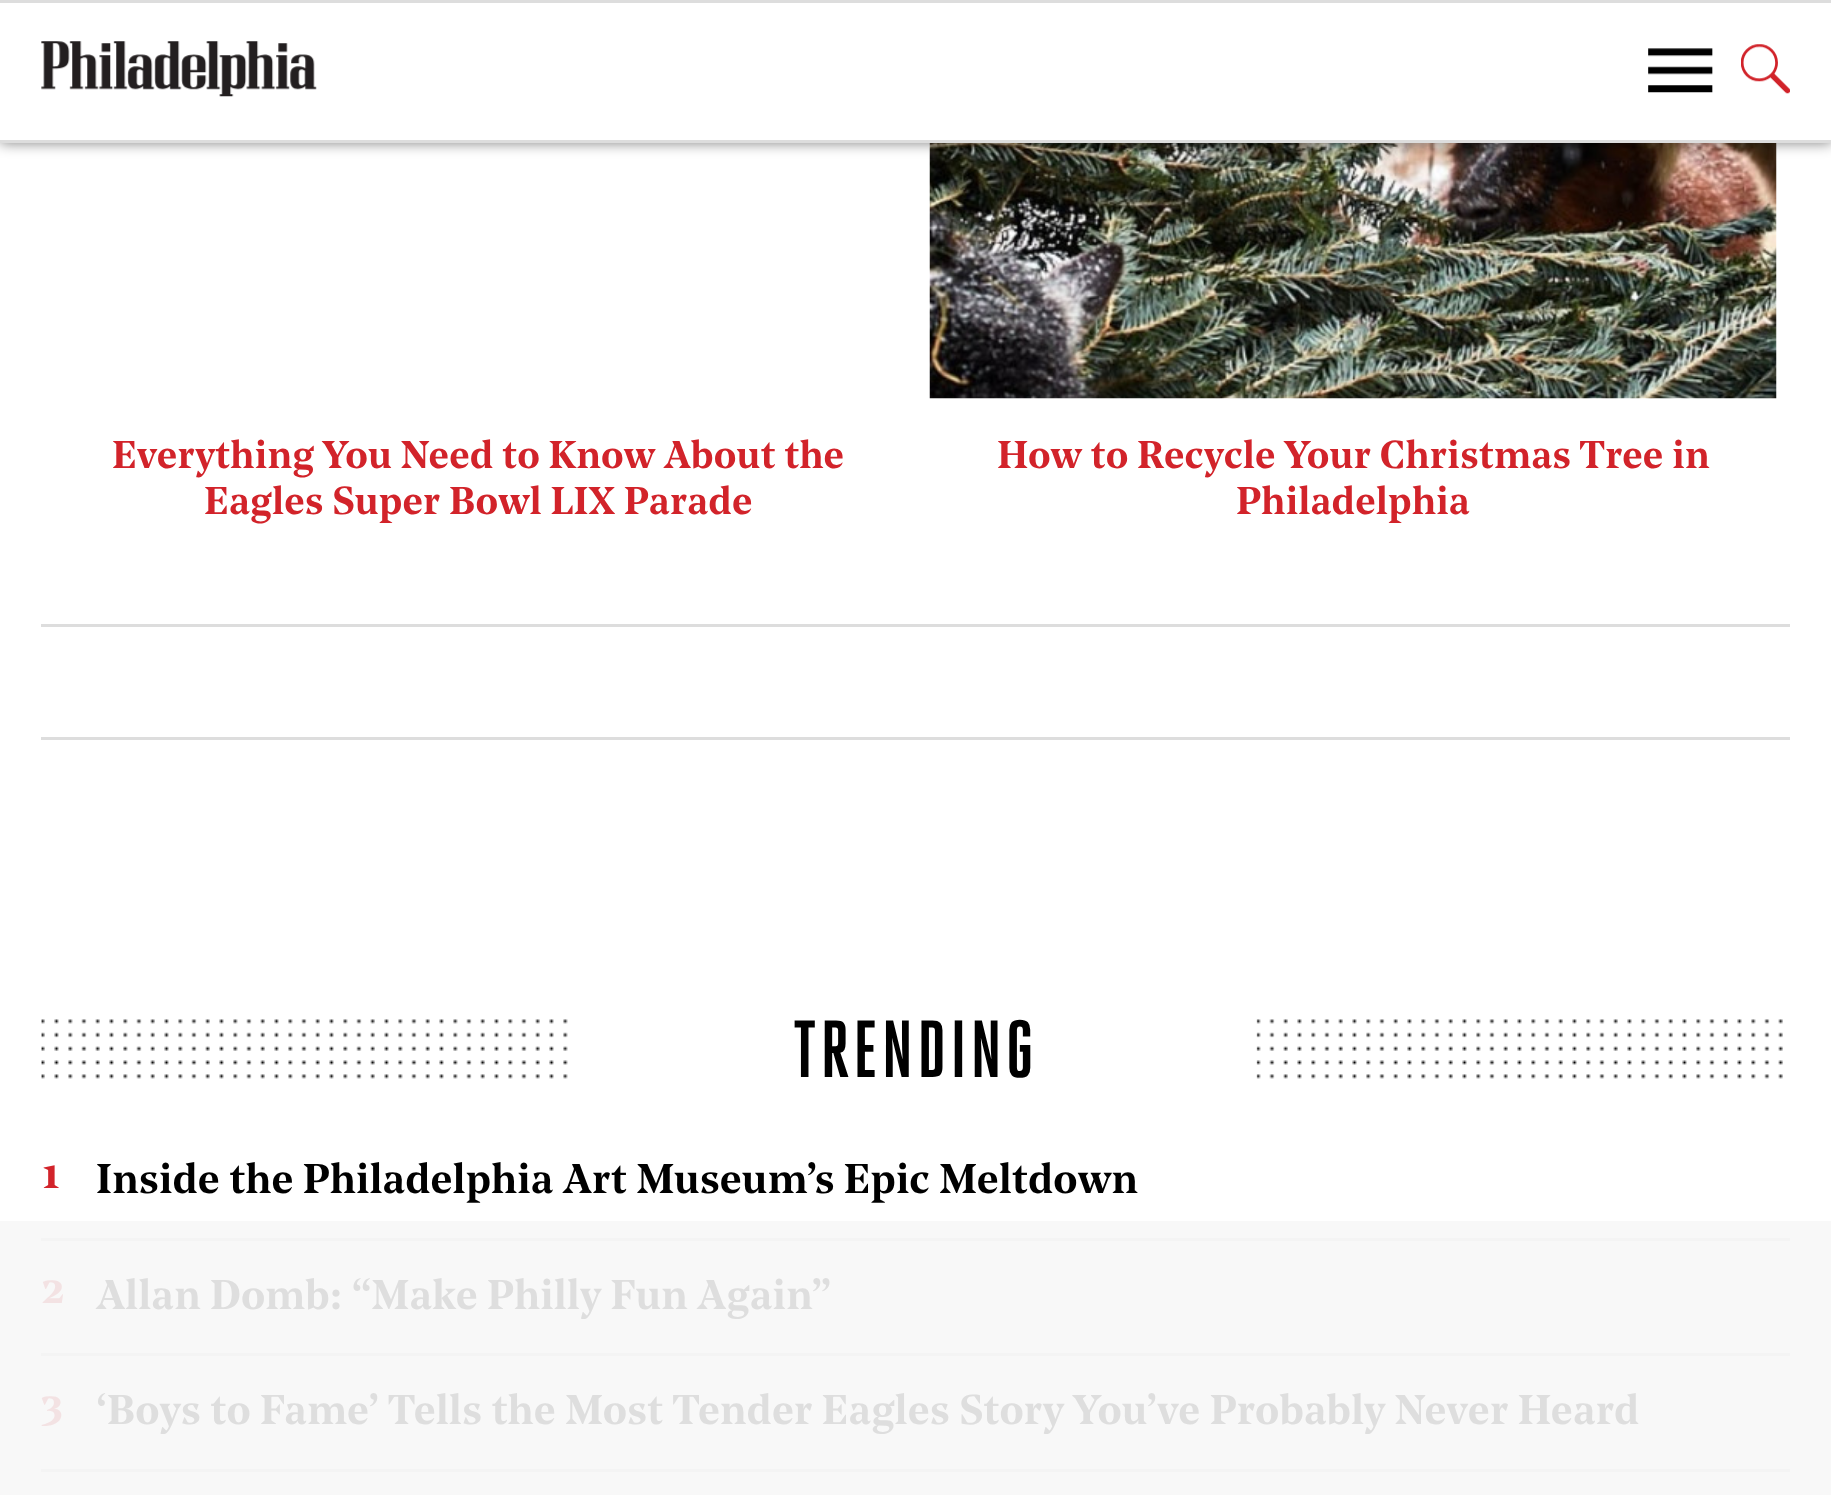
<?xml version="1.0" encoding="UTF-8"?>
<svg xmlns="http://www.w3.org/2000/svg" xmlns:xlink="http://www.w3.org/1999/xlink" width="1831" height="1495">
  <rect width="100%" height="100%" fill="#ffffff" />
  <rect y="1221" width="1831" height="274" fill="#f8f8f8" />
  <image x="929" y="143" width="848" height="256" xlink:href="image4.png" />
  <rect width="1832" height="143" fill="#000000" fill-opacity="0.5" filter="blur(7px)" />
  <rect y="3" width="1831" height="137" fill="#ffffff" />
  <rect width="1831" height="3" fill="#dddddd" />
  <rect y="140" width="1831" height="3" fill="#dddddd" />
  <image x="41" y="41" width="276" height="56" xlink:href="image1.png" />
  <image x="1648" y="48" width="65" height="45" xlink:href="image2.png" />
  <image x="1741" y="44" width="49" height="50" xlink:href="image3.png" />
  <rect x="41" y="624" width="1749" height="3" fill="#dddddd" />
  <rect x="41" y="737" width="1749" height="3" fill="#dddddd" />
  <image x="41" y="1019" width="527" height="60" xlink:href="image5.png" />
  <image x="1256" y="1019" width="527" height="60" xlink:href="image6.png" />
  <rect x="41" y="1238" width="1749" height="3" fill="#f4f4f4" />
  <rect x="41" y="1353" width="1749" height="3" fill="#f4f4f4" />
  <rect x="41" y="1469" width="1749" height="3" fill="#f4f4f4" />
  <text x="112" y="468" style="font-family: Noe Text; font-size: 38.5px; font-weight: 600; fill: #d2232a">Everything You Need to Know About the</text>
  <text x="204" y="514" style="font-family: Noe Text; font-size: 38.5px; font-weight: 600; fill: #d2232a">Eagles Super Bowl LIX Parade</text>
  <text x="997" y="468" style="font-family: Noe Text; font-size: 38.5px; font-weight: 600; fill: #d2232a">How to Recycle Your Christmas Tree in</text>
  <text x="1236" y="514" style="font-family: Noe Text; font-size: 38.5px; font-weight: 600; fill: #d2232a">Philadelphia</text>
  <text x="793" y="1077" style="font-family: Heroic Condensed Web; font-size: 77px; font-weight: 600; letter-spacing: 3.75px; fill: #000000">TRENDING</text>
  <text x="41" y="1188" style="font-family: Noe Text; font-size: 44px; font-weight: 600; fill: #d2232a">1</text>
  <text x="96" y="1193" style="font-family: Noe Text; font-size: 41.25px; font-weight: 600; fill: #000000">Inside the Philadelphia Art Museum’s Epic Meltdown</text>
  <text x="41" y="1303" style="font-family: Noe Text; font-size: 44px; font-weight: 600; fill: #f3e2e3">2</text>
  <text x="96" y="1309" style="font-family: Noe Text; font-size: 41.25px; font-weight: 600; fill: #dedede">Allan Domb: “Make Philly Fun Again”</text>
  <text x="41" y="1419" style="font-family: Noe Text; font-size: 44px; font-weight: 600; fill: #f3e2e3">3</text>
  <text x="96" y="1424" style="font-family: Noe Text; font-size: 41.25px; font-weight: 600; fill: #dedede">‘Boys to Fame’ Tells the Most Tender Eagles Story You’ve Probably Never Heard</text>
</svg>
